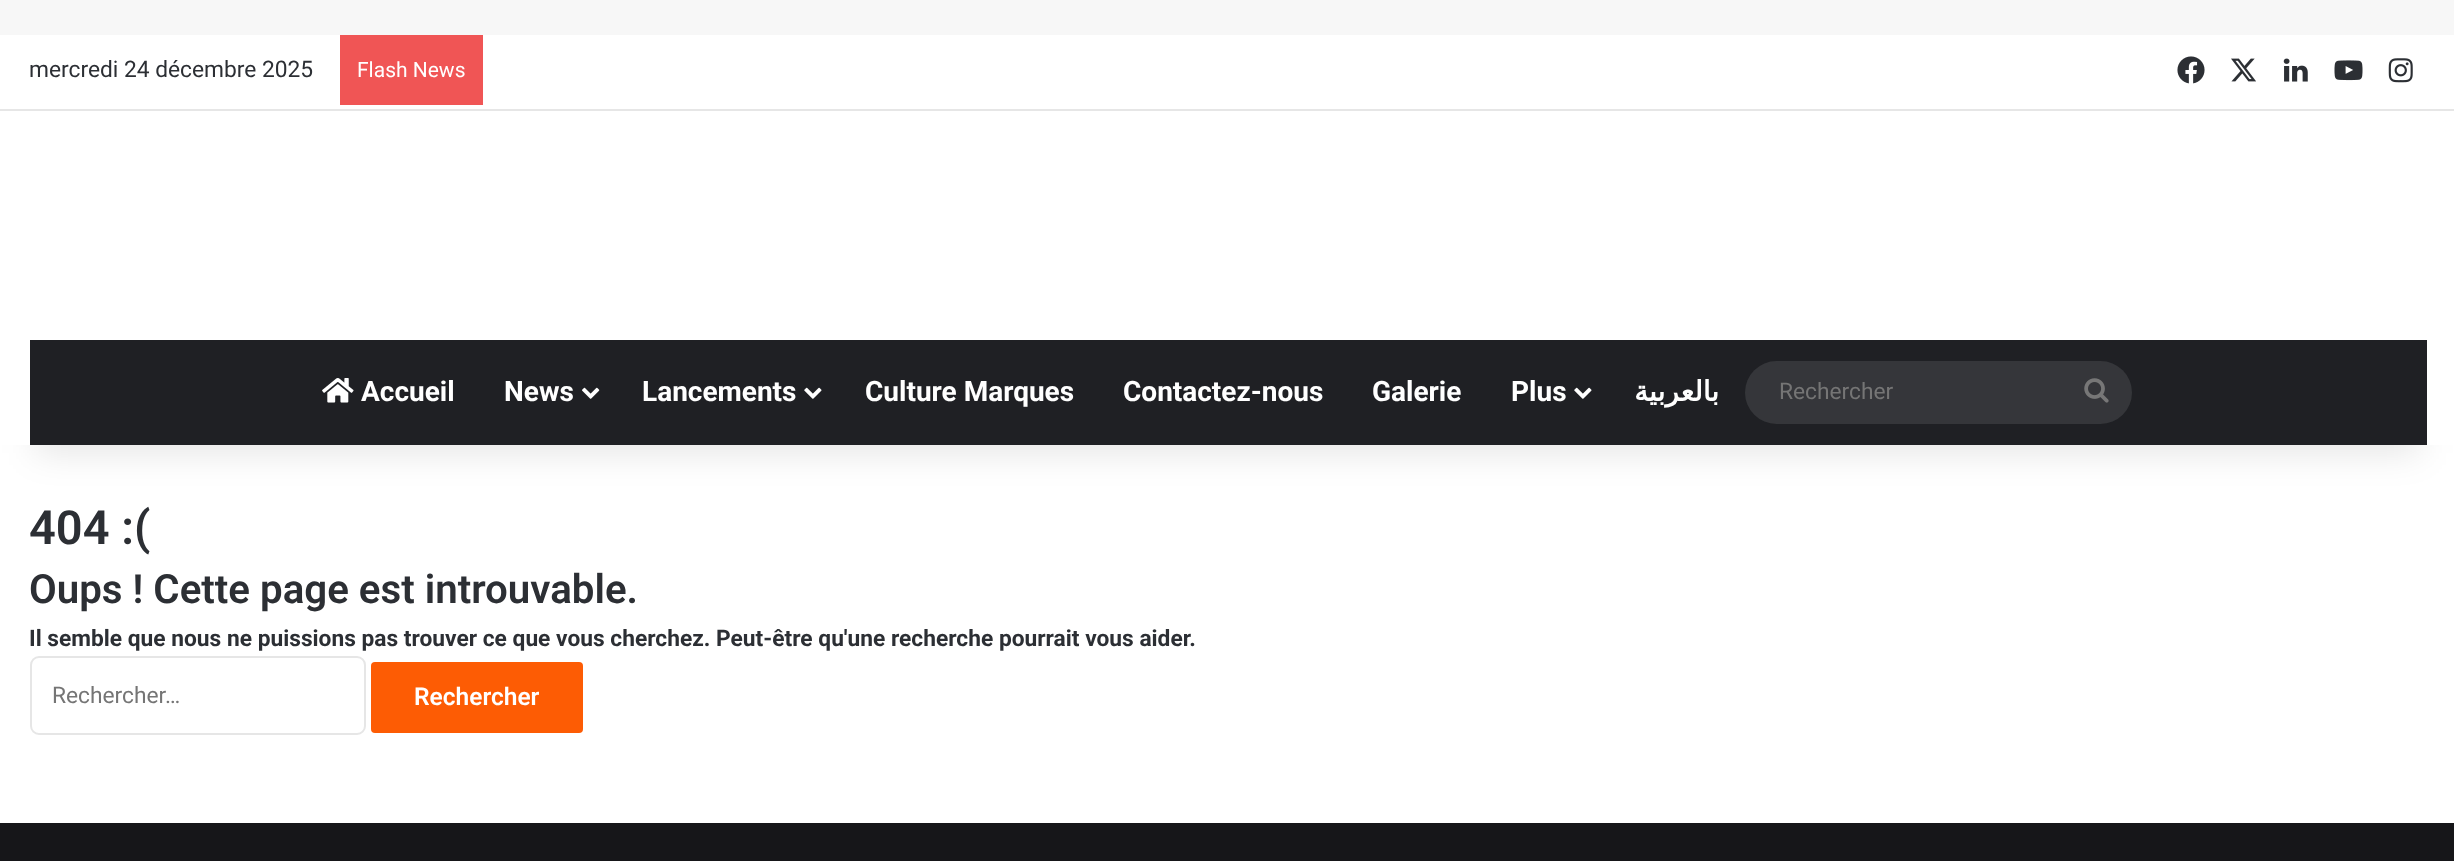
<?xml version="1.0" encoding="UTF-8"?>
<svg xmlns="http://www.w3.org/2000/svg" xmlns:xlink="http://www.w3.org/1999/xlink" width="2454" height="861">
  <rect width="100%" height="100%" fill="#f7f7f7" />
  <rect y="445" width="2454" height="378" fill="#ffffff" />
  <rect x="35" y="114" width="2385" height="339" fill="#000000" fill-opacity="0.1" filter="blur(17.5px)" />
  <rect y="35" width="2454" height="410" fill="#ffffff" />
  <rect y="109" width="2454" height="2" fill="#e6e6e6" />
  <rect x="340" y="35" width="143" height="70" fill="#f05555" />
  <image x="2177" y="56" width="28" height="28" xlink:href="image1.png" />
  <image x="2231" y="58" width="25" height="24" xlink:href="image2.png" />
  <image x="2283" y="58" width="25" height="24" xlink:href="image3.png" />
  <image x="2334" y="60" width="29" height="21" xlink:href="image4.png" />
  <image x="2388" y="58" width="25" height="25" xlink:href="image5.png" />
  <rect x="30" y="340" width="2397" height="105" fill="#1f2024" />
  <image x="322" y="378" width="32" height="25" xlink:href="image6.png" />
  <image x="582" y="387" width="18" height="12" xlink:href="image7.png" />
  <image x="804" y="387" width="18" height="12" xlink:href="image8.png" />
  <image x="1574" y="387" width="18" height="12" xlink:href="image8.png" />
  <rect x="1745" y="361" width="387" height="63" rx="31.5" fill="#35363a" />
  <image x="2084" y="378" width="25" height="25" xlink:href="image9.png" />
  <rect x="31" y="657" width="334" height="77" rx="8" fill="none" stroke="#e6e6e6" stroke-width="2" />
  <rect x="371" y="662" width="212" height="71" rx="4" fill="#fd5c04" />
  <rect y="823" width="2454" height="38" fill="#161619" />
  <text x="29" y="77" style="font-family: Roboto; font-size: 22.75px; fill: #2c2f34">mercredi 24 décembre 2025</text>
  <text x="357" y="77" style="font-family: Roboto; font-size: 21px; fill: #ffffff">Flash News</text>
  <text x="361" y="401" style="font-family: Roboto; font-size: 28px; font-weight: bold; fill: #ffffff">Accueil</text>
  <text x="504" y="401" style="font-family: Roboto; font-size: 28px; font-weight: bold; fill: #ffffff">News</text>
  <text x="642" y="401" style="font-family: Roboto; font-size: 28px; font-weight: bold; fill: #ffffff">Lancements</text>
  <text x="865" y="401" style="font-family: Roboto; font-size: 28px; font-weight: bold; fill: #ffffff">Culture Marques</text>
  <text x="1123" y="401" style="font-family: Roboto; font-size: 28px; font-weight: bold; fill: #ffffff">Contactez-nous</text>
  <text x="1372" y="401" style="font-family: Roboto; font-size: 28px; font-weight: bold; fill: #ffffff">Galerie</text>
  <text x="1511" y="401" style="font-family: Roboto; font-size: 28px; font-weight: bold; fill: #ffffff">Plus</text>
  <text x="1719" y="401" style="font-family: DejaVu Sans; font-size: 28px; font-weight: bold; direction: rtl; fill: #ffffff">بالعربية</text>
  <text x="1779" y="399" style="font-family: Roboto; font-size: 22.75px; fill: #757575">Rechercher</text>
  <text x="29" y="544" style="font-family: Roboto; font-size: 47px; font-weight: 600; fill: #2c2f34">404 :(</text>
  <text x="29" y="603" style="font-family: Roboto; font-size: 40.25px; font-weight: 600; fill: #2c2f34">Oups ! Cette page est introuvable.</text>
  <text x="29" y="646" style="font-family: Roboto; font-size: 22.75px; font-weight: bold; fill: #2c2f34">Il semble que nous ne puissions pas trouver ce que vous cherchez. Peut-être qu'une recherche pourrait vous aider.</text>
  <text x="52" y="703" style="font-family: Roboto; font-size: 22.75px; fill: #757575">Rechercher…</text>
  <text x="414" y="705" style="font-family: Roboto; font-size: 24.5px; font-weight: 600; fill: #ffffff">Rechercher</text>
</svg>
